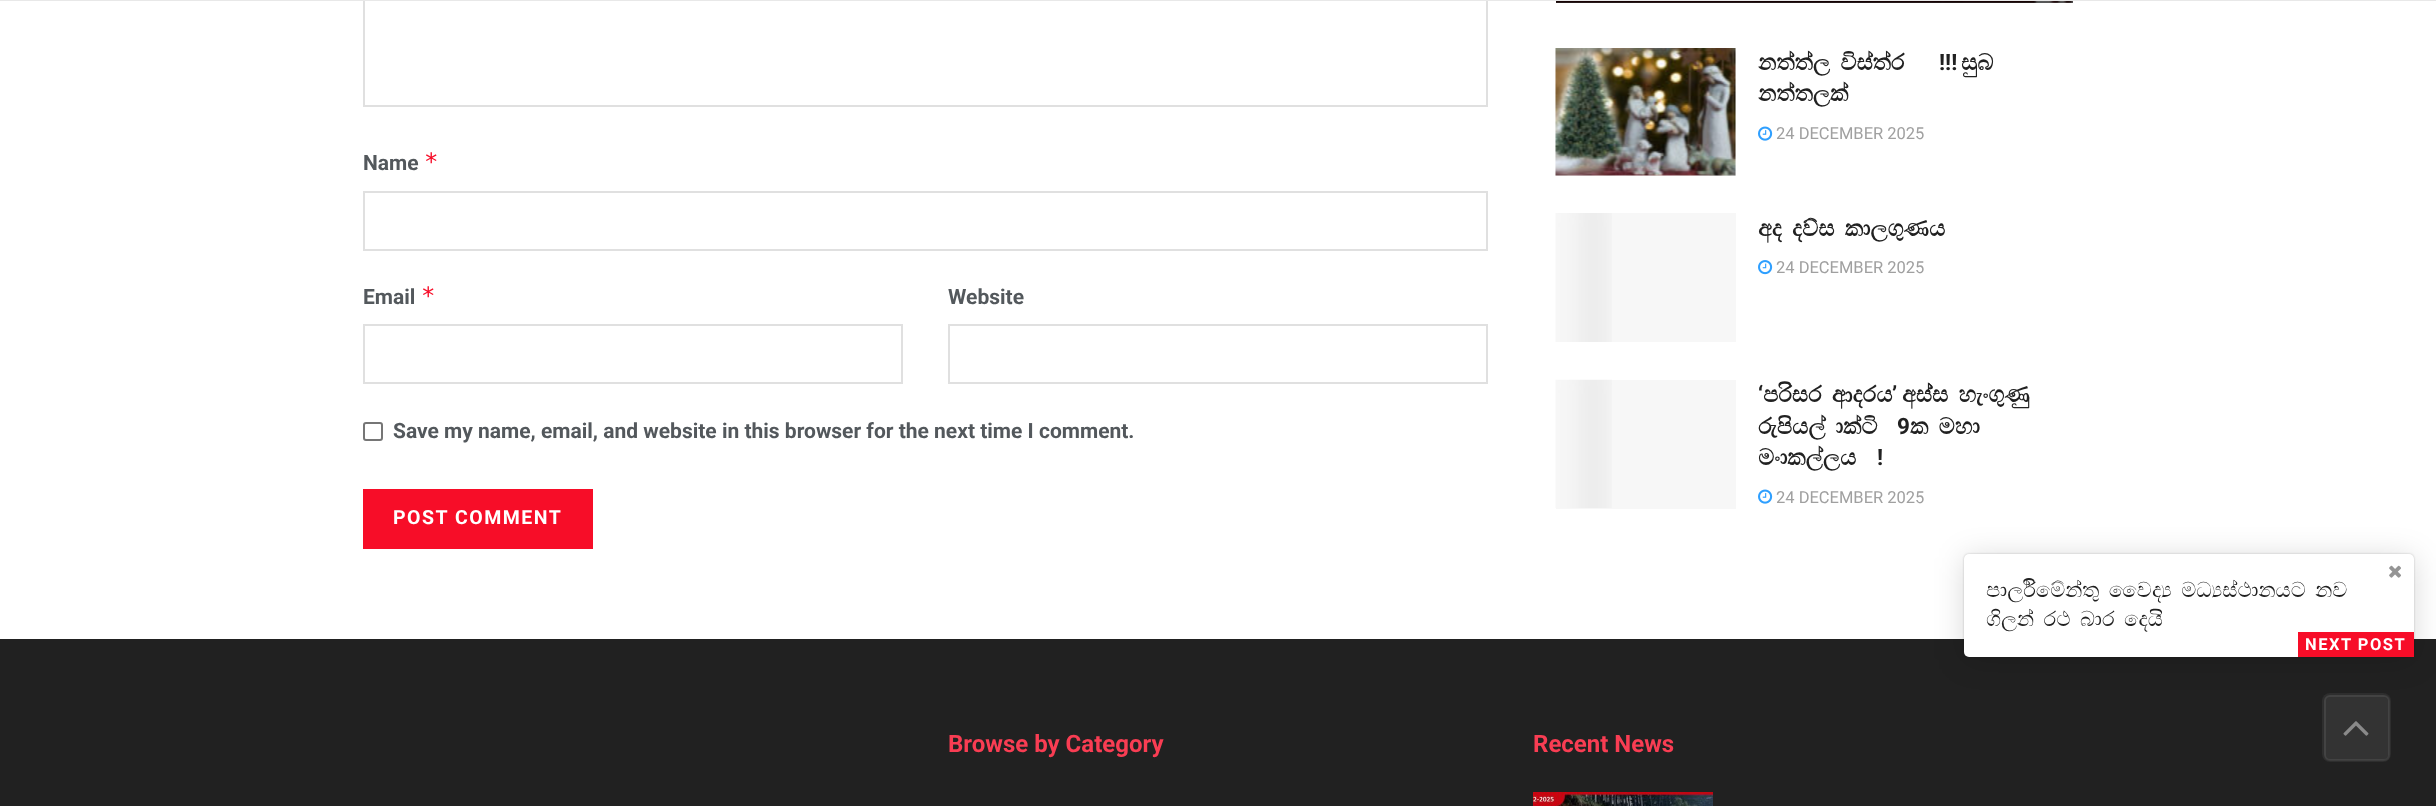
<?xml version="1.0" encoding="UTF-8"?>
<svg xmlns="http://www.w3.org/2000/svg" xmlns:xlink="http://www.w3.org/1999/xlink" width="2436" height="806">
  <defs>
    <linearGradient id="g1" gradientUnits="userSpaceOnUse" x1="1814" y1="-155" x2="1814" y2="3"><stop offset="0" stop-color="#000000" stop-opacity="0" /><stop offset="0.7" stop-color="#000000" stop-opacity="0.65" /></linearGradient>
  </defs>
  <rect width="100%" height="100%" fill="#ffffff" />
  <rect x="364" y="-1" width="1123" height="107" fill="none" stroke="#e0e0e0" stroke-width="2" />
  <rect width="2436" height="1" fill="#e8e8e8" />
  <image x="1993" y="1" width="80" height="2" xlink:href="image2.png" />
  <image x="1556" y="1" width="517" height="2" xlink:href="image1.png" />
  <rect x="1556" y="1" width="517" height="2" fill="url(#g1)" />
  <rect x="1556" y="48" width="180" height="128" fill="#f7f7f7" />
  <image x="1555" y="48" width="181" height="128" xlink:href="image3.png" />
  <image x="1555" y="48" width="181" height="128" xlink:href="image4.png" />
  <image x="1758" y="126" width="15" height="15" xlink:href="image5.png" />
  <rect x="1612" y="213" width="124" height="129" fill="#f7f7f7" />
  <image x="1555" y="213" width="57" height="129" xlink:href="image6.png" />
  <image x="1758" y="260" width="15" height="15" xlink:href="image7.png" />
  <rect x="1556" y="380" width="180" height="129" fill="#f7f7f7" />
  <image x="1555" y="379" width="57" height="129" xlink:href="image8.png" />
  <image x="1758" y="489" width="15" height="15" xlink:href="image5.png" />
  <rect x="364" y="192" width="1123" height="58" fill="none" stroke="#e0e0e0" stroke-width="2" />
  <rect x="364" y="325" width="538" height="58" fill="none" stroke="#e0e0e0" stroke-width="2" />
  <rect x="949" y="325" width="538" height="58" fill="none" stroke="#e0e0e0" stroke-width="2" />
  <rect x="364" y="423" width="18" height="17" rx="2" fill="none" stroke="#767676" stroke-width="2" />
  <rect x="363" y="489" width="230" height="60" fill="#f70d28" />
  <rect y="639" width="2436" height="167" fill="#212121" />
  <rect x="1964" y="557" width="450" height="103" rx="5" fill="#000000" fill-opacity="0.15" filter="blur(15px)" />
  <rect x="1964" y="554" width="450" height="103" rx="5" fill="#000000" fill-opacity="0.2" filter="blur(1px)" />
  <rect x="1964" y="554" width="450" height="103" rx="5" fill="#ffffff" />
  <image x="2389" y="565" width="12" height="13" xlink:href="image9.png" />
  <rect x="2298" y="632" width="116" height="25" fill="#f70d28" />
  <image x="1533" y="792" width="180" height="14" xlink:href="image10.png" />
  <rect x="2322" y="693" width="69" height="69" rx="8" fill="#333333" />
  <rect x="2325" y="696" width="64" height="64" rx="5" fill="none" stroke="#434343" stroke-width="2" />
  <rect x="2323" y="694" width="67" height="67" rx="7" fill="none" stroke="#070707" stroke-opacity="0.11" stroke-width="2" />
  <image x="2343" y="721" width="26" height="15" xlink:href="image11.png" />
  <text x="1758" y="70" word-spacing="-1" style="font-family: FreeSerif; font-size: 22.5px; font-weight: bold; fill: #212121">නත්තලේ විස්තරේ</text>
  <text x="1939" y="70" style="font-family: Roboto; font-size: 22.5px; font-weight: bold; fill: #212121">!!!</text>
  <text x="1961" y="70" style="font-family: FreeSerif; font-size: 22.5px; font-weight: bold; fill: #212121">සුබ</text>
  <text x="1758" y="101" style="font-family: FreeSerif; font-size: 22.5px; font-weight: bold; fill: #212121">නත්තලක්</text>
  <text x="1776" y="139" style="font-family: Roboto; font-size: 16.5px; fill: #a0a0a0">24 DECEMBER 2025</text>
  <text x="1758" y="236" word-spacing="-1" style="font-family: FreeSerif; font-size: 22.5px; font-weight: bold; fill: #212121">අද දවසේ කාලගුණය</text>
  <text x="1776" y="273" style="font-family: Roboto; font-size: 16.5px; fill: #a0a0a0">24 DECEMBER 2025</text>
  <text x="1758" y="402" style="font-family: Roboto; font-size: 22.5px; font-weight: bold; fill: #212121">‘</text>
  <text x="1763" y="402" word-spacing="-1" style="font-family: FreeSerif; font-size: 22.5px; font-weight: bold; fill: #212121">පරිසර ආදරය</text>
  <text x="1892" y="402" style="font-family: Roboto; font-size: 22.5px; font-weight: bold; fill: #212121">’</text>
  <text x="1902" y="402" word-spacing="-1" style="font-family: FreeSerif; font-size: 22.5px; font-weight: bold; fill: #212121">අස්සේ හැංගුණු</text>
  <text x="1758" y="434" word-spacing="-1" style="font-family: FreeSerif; font-size: 22.5px; font-weight: bold; fill: #212121">රුපියල් කෝටි</text>
  <text x="1897" y="434" style="font-family: Roboto; font-size: 22.5px; font-weight: bold; fill: #212121">9</text>
  <text x="1910" y="434" word-spacing="-1" style="font-family: FreeSerif; font-size: 22.5px; font-weight: bold; fill: #212121">ක මහා</text>
  <text x="1758" y="465" style="font-family: FreeSerif; font-size: 22.5px; font-weight: bold; fill: #212121">මංකොල්ලය</text>
  <text x="1877" y="465" style="font-family: Roboto; font-size: 22.5px; font-weight: bold; fill: #212121">!</text>
  <text x="1776" y="503" style="font-family: Roboto; font-size: 16.5px; fill: #a0a0a0">24 DECEMBER 2025</text>
  <text x="363" y="170" style="font-family: Roboto; font-size: 21px; font-weight: bold; fill: #53585c">Name</text>
  <text x="424" y="170" style="font-family: DejaVu Sans Mono; font-size: 24px; fill: #f70d28">*</text>
  <text x="363" y="304" style="font-family: Roboto; font-size: 21px; font-weight: bold; fill: #53585c">Email</text>
  <text x="421" y="304" style="font-family: DejaVu Sans Mono; font-size: 24px; fill: #f70d28">*</text>
  <text x="948" y="304" style="font-family: Roboto; font-size: 21px; font-weight: bold; fill: #53585c">Website</text>
  <text x="393" y="438" style="font-family: Roboto; font-size: 21px; font-weight: bold; fill: #53585c">Save my name, email, and website in this browser for the next time I comment.</text>
  <text x="393" y="524" style="font-family: Roboto; font-size: 19.5px; font-weight: bold; letter-spacing: 1.5px; fill: #ffffff">POST COMMENT</text>
  <text x="1986" y="597" word-spacing="-1" style="font-family: FreeSerif; font-size: 21px; fill: #212121">පාර්ලිමේන්තු වෛද්‍ය මධ්‍යස්ථානයට නව</text>
  <text x="1986" y="626" word-spacing="-1" style="font-family: FreeSerif; font-size: 21px; fill: #212121">ගිලන් රථ බාර දෙයි</text>
  <text x="2305" y="650" style="font-family: Roboto; font-size: 16.5px; font-weight: bold; letter-spacing: 1.5px; fill: #ffffff">NEXT POST</text>
  <text x="948" y="752" style="font-family: Roboto; font-size: 24px; font-weight: bold; fill: #f93d53">Browse by Category</text>
  <text x="1533" y="752" style="font-family: Roboto; font-size: 24px; font-weight: bold; fill: #f93d53">Recent News</text>
</svg>
